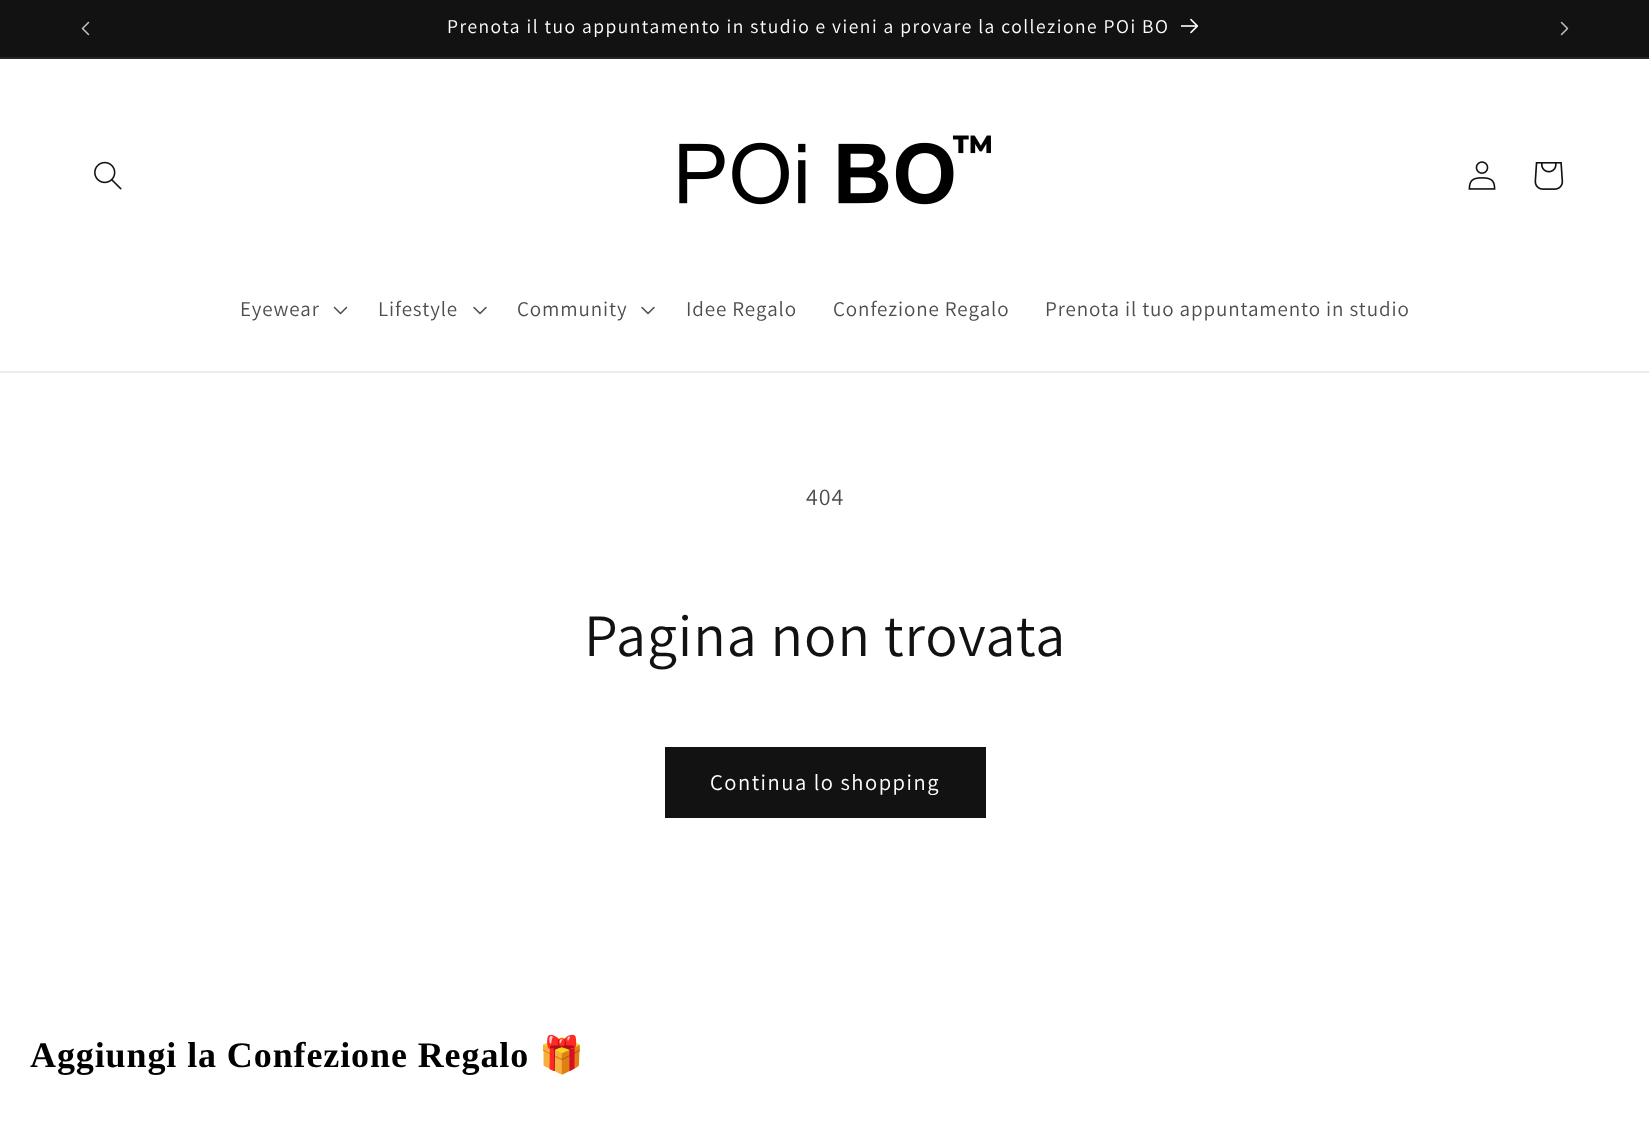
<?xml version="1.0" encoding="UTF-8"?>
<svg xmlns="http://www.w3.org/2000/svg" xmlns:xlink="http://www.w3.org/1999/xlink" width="1649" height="1129">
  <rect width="100%" height="100%" fill="#ffffff" />
  <rect width="1649" height="57" fill="#121212" />
  <rect y="57" width="1649" height="2" fill="#252525" />
  <image x="81" y="21" width="9" height="15" xlink:href="image1.png" />
  <image x="1181" y="18" width="18" height="16" xlink:href="image2.png" />
  <image x="1560" y="21" width="9" height="15" xlink:href="image3.png" />
  <rect y="371" width="1649" height="2" fill="#ececec" />
  <image x="94" y="161" width="28" height="29" xlink:href="image4.png" />
  <image x="679" y="135" width="312" height="70" xlink:href="image5.png" />
  <image x="1468" y="161" width="28" height="29" xlink:href="image6.png" />
  <image x="1534" y="162" width="30" height="28" xlink:href="image7.png" />
  <image x="333" y="306" width="15" height="9" xlink:href="image8.png" />
  <image x="473" y="306" width="14" height="9" xlink:href="image9.png" />
  <image x="641" y="306" width="14" height="9" xlink:href="image9.png" />
  <rect x="665" y="747" width="321" height="71" fill="#121212" />
  <text x="447" y="33" style="font-family: Assistant; font-size: 19.5px; letter-spacing: 1.5px; fill: #ffffff">Prenota il tuo appuntamento in studio e vieni a provare la collezione POi BO</text>
  <text x="240" y="316" style="font-family: Assistant; font-size: 21px; letter-spacing: 0.9px; fill: #4d4d4d">Eyewear</text>
  <text x="378" y="316" style="font-family: Assistant; font-size: 21px; letter-spacing: 0.9px; fill: #4d4d4d">Lifestyle</text>
  <text x="517" y="316" style="font-family: Assistant; font-size: 21px; letter-spacing: 0.9px; fill: #4d4d4d">Community</text>
  <text x="686" y="316" style="font-family: Assistant; font-size: 21px; letter-spacing: 0.9px; fill: #4d4d4d">Idee Regalo</text>
  <text x="833" y="316" style="font-family: Assistant; font-size: 21px; letter-spacing: 0.9px; fill: #4d4d4d">Confezione Regalo</text>
  <text x="1045" y="316" style="font-family: Assistant; font-size: 21px; letter-spacing: 0.9px; fill: #4d4d4d">Prenota il tuo appuntamento in studio</text>
  <text x="806" y="505" style="font-family: Assistant; font-size: 24px; letter-spacing: 0.9px; fill: #4d4d4d">404</text>
  <text x="584" y="656" style="font-family: Assistant; font-size: 60px; letter-spacing: 0.9px; fill: #121212">Pagina non trovata</text>
  <text x="710" y="790" style="font-family: Assistant; font-size: 22.5px; letter-spacing: 1.5px; fill: #ffffff">Continua lo shopping</text>
  <text x="30" y="1067" style="font-family: Liberation Serif; font-size: 36px; font-weight: bold; letter-spacing: 0.9px; fill: #000000">Aggiungi la Confezione Regalo</text>
  <text x="539" y="1067" style="font-family: Noto Color Emoji; font-size: 36px; font-weight: bold; letter-spacing: 0.9px; fill: #000000">🎁</text>
</svg>
